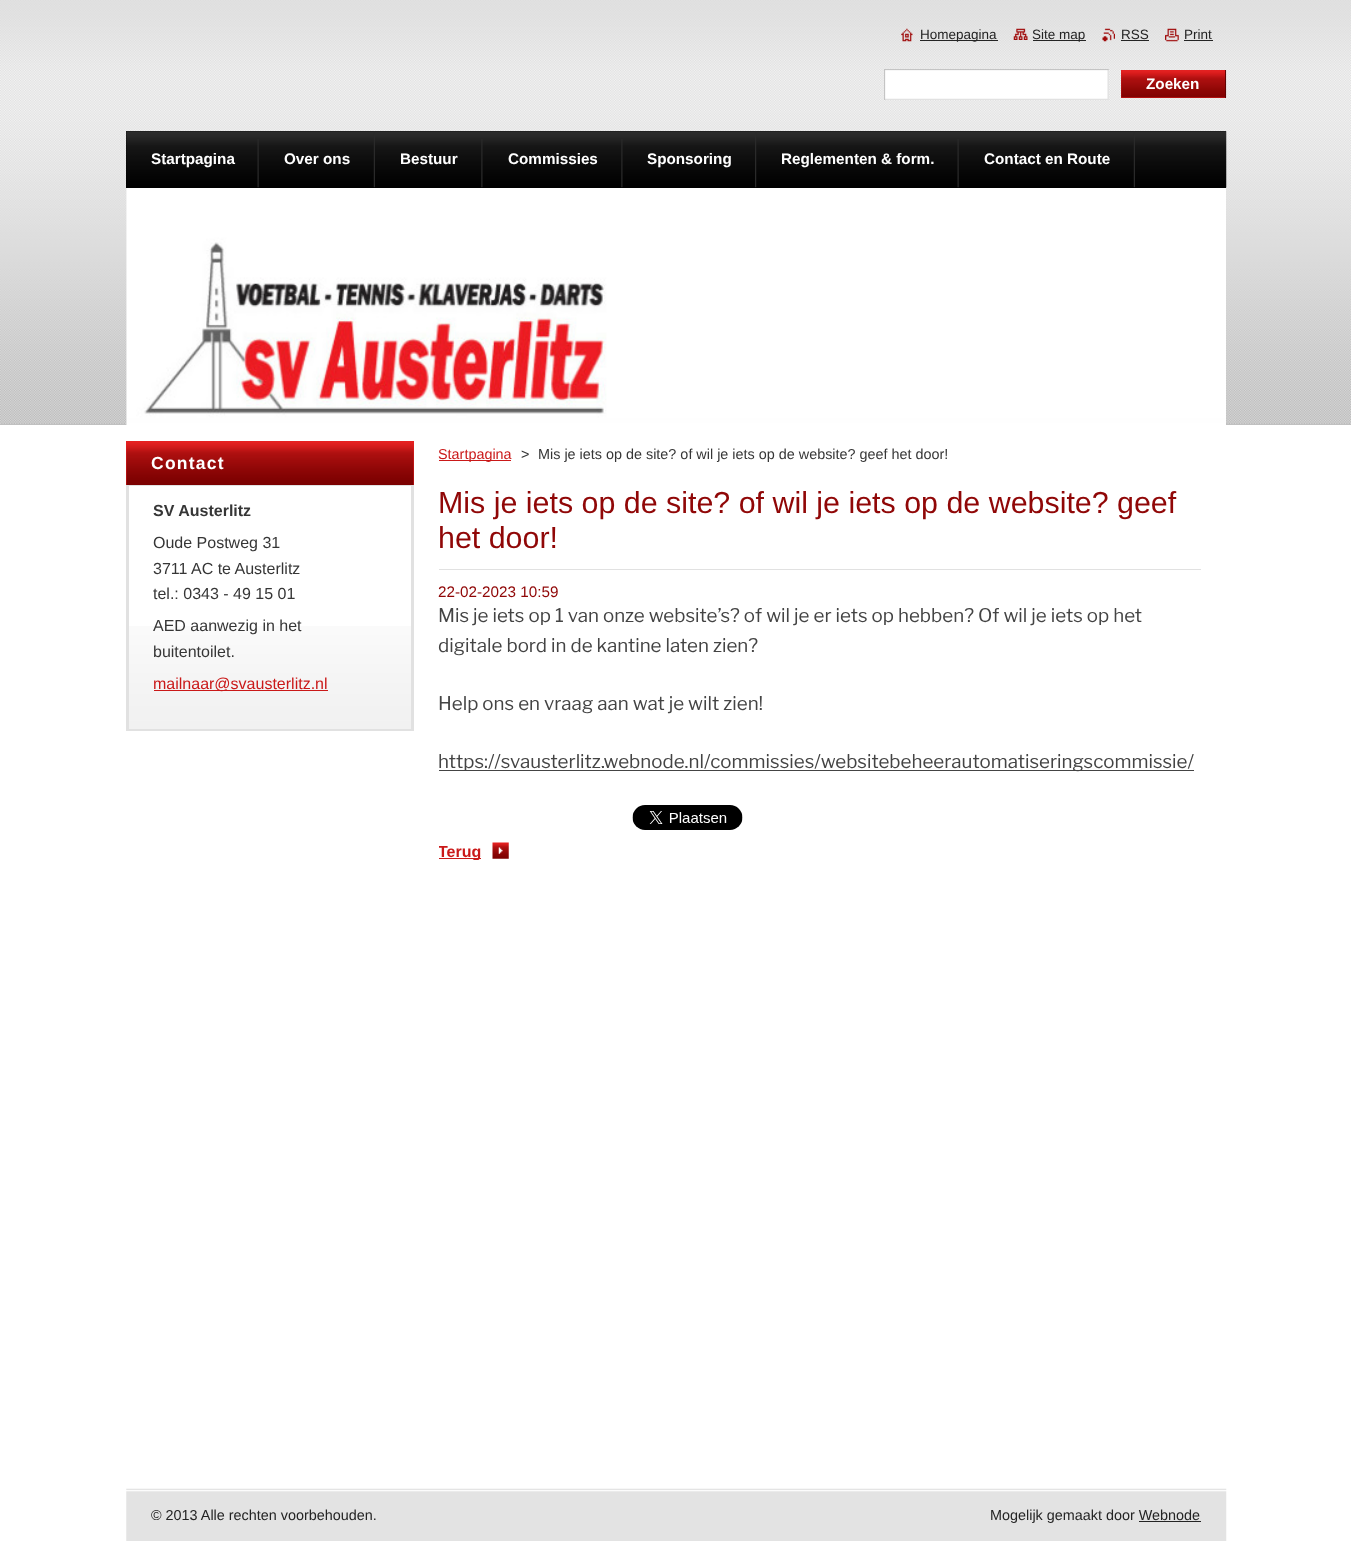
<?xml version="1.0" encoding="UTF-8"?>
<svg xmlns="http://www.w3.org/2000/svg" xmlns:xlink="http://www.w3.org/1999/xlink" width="1351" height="1541">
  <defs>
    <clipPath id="clip1"><rect x="439" y="583" width="762" height="277" /></clipPath>
  </defs>
  <rect width="100%" height="100%" fill="#ffffff" />
  <image x="0" y="0" width="1351" height="425" xlink:href="image1.png" />
  <image x="901" y="28" width="12" height="14" xlink:href="image2.png" />
  <rect x="920" y="40" width="78" height="1" fill="#242424" />
  <image x="1013" y="28" width="15" height="12" xlink:href="image3.png" />
  <rect x="1033" y="40" width="53" height="1" fill="#242424" />
  <image x="1102" y="28" width="13" height="14" xlink:href="image4.png" />
  <rect x="1121" y="40" width="28" height="1" fill="#242424" />
  <image x="1165" y="28" width="14" height="14" xlink:href="image5.png" />
  <rect x="1184" y="40" width="29" height="1" fill="#242424" />
  <image x="884" y="69" width="225" height="31" xlink:href="image6.png" />
  <rect x="1121" y="70" width="104" height="28" fill="#e52020" />
  <image x="1121" y="70" width="106" height="28" xlink:href="image7.png" />
  <rect x="1225" y="70" width="1" height="28" fill="#610303" />
  <rect x="126" y="131" width="1100" height="57" fill="#000000" />
  <image x="126" y="131" width="1101" height="57" xlink:href="image8.png" />
  <image x="257" y="139" width="2" height="49" xlink:href="image9.png" />
  <image x="373" y="131" width="2" height="57" xlink:href="image10.png" />
  <image x="481" y="139" width="2" height="49" xlink:href="image11.png" />
  <image x="621" y="139" width="2" height="49" xlink:href="image11.png" />
  <image x="755" y="131" width="2" height="57" xlink:href="image12.png" />
  <image x="957" y="139" width="2" height="49" xlink:href="image9.png" />
  <image x="1133" y="131" width="2" height="57" xlink:href="image13.png" />
  <image x="126" y="188" width="1100" height="237" xlink:href="image14.png" />
  <image x="129" y="626" width="282" height="103" xlink:href="image15.png" />
  <rect x="126" y="441" width="288" height="44" fill="#e52020" />
  <image x="126" y="443" width="288" height="42" xlink:href="image16.png" />
  <rect x="126" y="485" width="288" height="1" fill="#e1e1e1" />
  <rect x="411" y="486" width="3" height="245" fill="#e1e1e1" />
  <rect x="126" y="729" width="288" height="2" fill="#e1e1e1" />
  <rect x="126" y="486" width="3" height="245" fill="#e1e1e1" />
  <rect x="154" y="690" width="174" height="1" fill="#ca1919" />
  <rect x="439" y="460" width="72" height="1" fill="#ca1919" />
  <rect x="439" y="569" width="762" height="1" fill="#e1e1e1" />
  <rect x="439" y="770" width="755" height="1" fill="#444444" />
  <image x="632" y="805" width="111" height="25" xlink:href="image17.png" />
  <image x="492" y="842" width="17" height="17" xlink:href="image18.png" />
  <rect x="439" y="858" width="42" height="1" fill="#ca1919" />
  <image x="126" y="1488" width="1101" height="53" xlink:href="image19.png" />
  <rect x="1139" y="1521" width="62" height="1" fill="#242424" />
  <text x="920" y="39" style="font-family: Liberation Sans; font-size: 13.5px; fill: #242424">Homepagina</text>
  <text x="1032" y="39" style="font-family: Liberation Sans; font-size: 13.5px; fill: #242424">Site map</text>
  <text x="1121" y="39" style="font-family: Liberation Sans; font-size: 13.5px; fill: #242424">RSS</text>
  <text x="1184" y="39" style="font-family: Liberation Sans; font-size: 13.5px; fill: #242424">Print</text>
  <text x="1146" y="89" style="font-family: Liberation Sans; font-size: 15.25px; font-weight: bold; fill: #ffffff">Zoeken</text>
  <text x="151" y="164" style="font-family: Liberation Sans; font-size: 15.25px; font-weight: bold; fill: #ffffff">Startpagina</text>
  <text x="284" y="164" style="font-family: Liberation Sans; font-size: 15.25px; font-weight: bold; fill: #ffffff">Over ons</text>
  <text x="400" y="164" style="font-family: Liberation Sans; font-size: 15.25px; font-weight: bold; fill: #ffffff">Bestuur</text>
  <text x="508" y="164" style="font-family: Liberation Sans; font-size: 15.25px; font-weight: bold; fill: #ffffff">Commissies</text>
  <text x="647" y="164" style="font-family: Liberation Sans; font-size: 15.25px; font-weight: bold; fill: #ffffff">Sponsoring</text>
  <text x="781" y="164" style="font-family: Liberation Sans; font-size: 15.25px; font-weight: bold; fill: #ffffff">Reglementen &amp; form.</text>
  <text x="984" y="164" style="font-family: Liberation Sans; font-size: 15.25px; font-weight: bold; fill: #ffffff">Contact en Route</text>
  <text x="151" y="469" style="font-family: Liberation Sans; font-size: 17.5px; font-weight: bold; letter-spacing: 1.25px; fill: #ffffff">Contact</text>
  <text x="153" y="516" style="font-family: Liberation Sans; font-size: 16px; font-weight: bold; fill: #363636">SV Austerlitz</text>
  <text x="153" y="548" style="font-family: Liberation Sans; font-size: 16px; fill: #363636">Oude Postweg 31</text>
  <text x="153" y="574" style="font-family: Liberation Sans; font-size: 16px; fill: #363636">3711 AC te Austerlitz</text>
  <text x="153" y="599" style="font-family: Liberation Sans; font-size: 16px; fill: #363636">tel.: 0343 - 49 15 01</text>
  <text x="153" y="631" style="font-family: Liberation Sans; font-size: 16px; fill: #363636">AED aanwezig in het</text>
  <text x="153" y="657" style="font-family: Liberation Sans; font-size: 16px; fill: #363636">buitentoilet.</text>
  <text x="153" y="689" style="font-family: Liberation Sans; font-size: 16px; fill: #ca1919">mailnaar@svausterlitz.nl</text>
  <text x="438" y="459" style="font-family: Liberation Sans; font-size: 14.4px; fill: #ca1919">Startpagina</text>
  <text x="521" y="459" style="font-family: Liberation Sans; font-size: 14.4px; fill: #363636">&gt;</text>
  <text x="538" y="459" style="font-family: Liberation Sans; font-size: 14.4px; fill: #363636">Mis je iets op de site? of wil je iets op de website? geef het door!</text>
  <text x="438" y="513" style="font-family: Liberation Sans; font-size: 30.4px; fill: #900707">Mis je iets op de site? of wil je iets op de website? geef</text>
  <text x="438" y="548" style="font-family: Liberation Sans; font-size: 30.4px; fill: #900707">het door!</text>
  <text x="438" y="597" style="font-family: Liberation Sans; font-size: 15.25px; fill: #900707">22-02-2023 10:59</text>
  <text x="438" y="622" style="font-family: Libre Franklin; font-size: 18.75px; fill: #444444">Mis je iets op 1 van onze website’s? of wil je er iets op hebben? Of wil je iets op het</text>
  <text x="438" y="652" style="font-family: Libre Franklin; font-size: 18.75px; fill: #444444">digitale bord in de kantine laten zien?</text>
  <text x="438" y="710" style="font-family: Libre Franklin; font-size: 18.75px; fill: #444444">Help ons en vraag aan wat je wilt zien!</text>
  <text x="438" y="768" style="font-family: Libre Franklin; font-size: 18.75px; fill: #444444">https://svausterlitz.webnode.nl/commissies/websitebeheerautomatiseringscommissie/</text>
  <g clip-path="url(#clip1)">
    <text x="438" y="857" style="font-family: Liberation Sans; font-size: 16px; font-weight: bold; fill: #ca1919">Terug</text>
  </g>
  <text x="151" y="1520" style="font-family: Liberation Sans; font-size: 14.4px; fill: #242424">© 2013 Alle rechten voorbehouden.</text>
  <text x="990" y="1520" style="font-family: Liberation Sans; font-size: 14.4px; fill: #242424">Mogelijk gemaakt door Webnode</text>
</svg>
